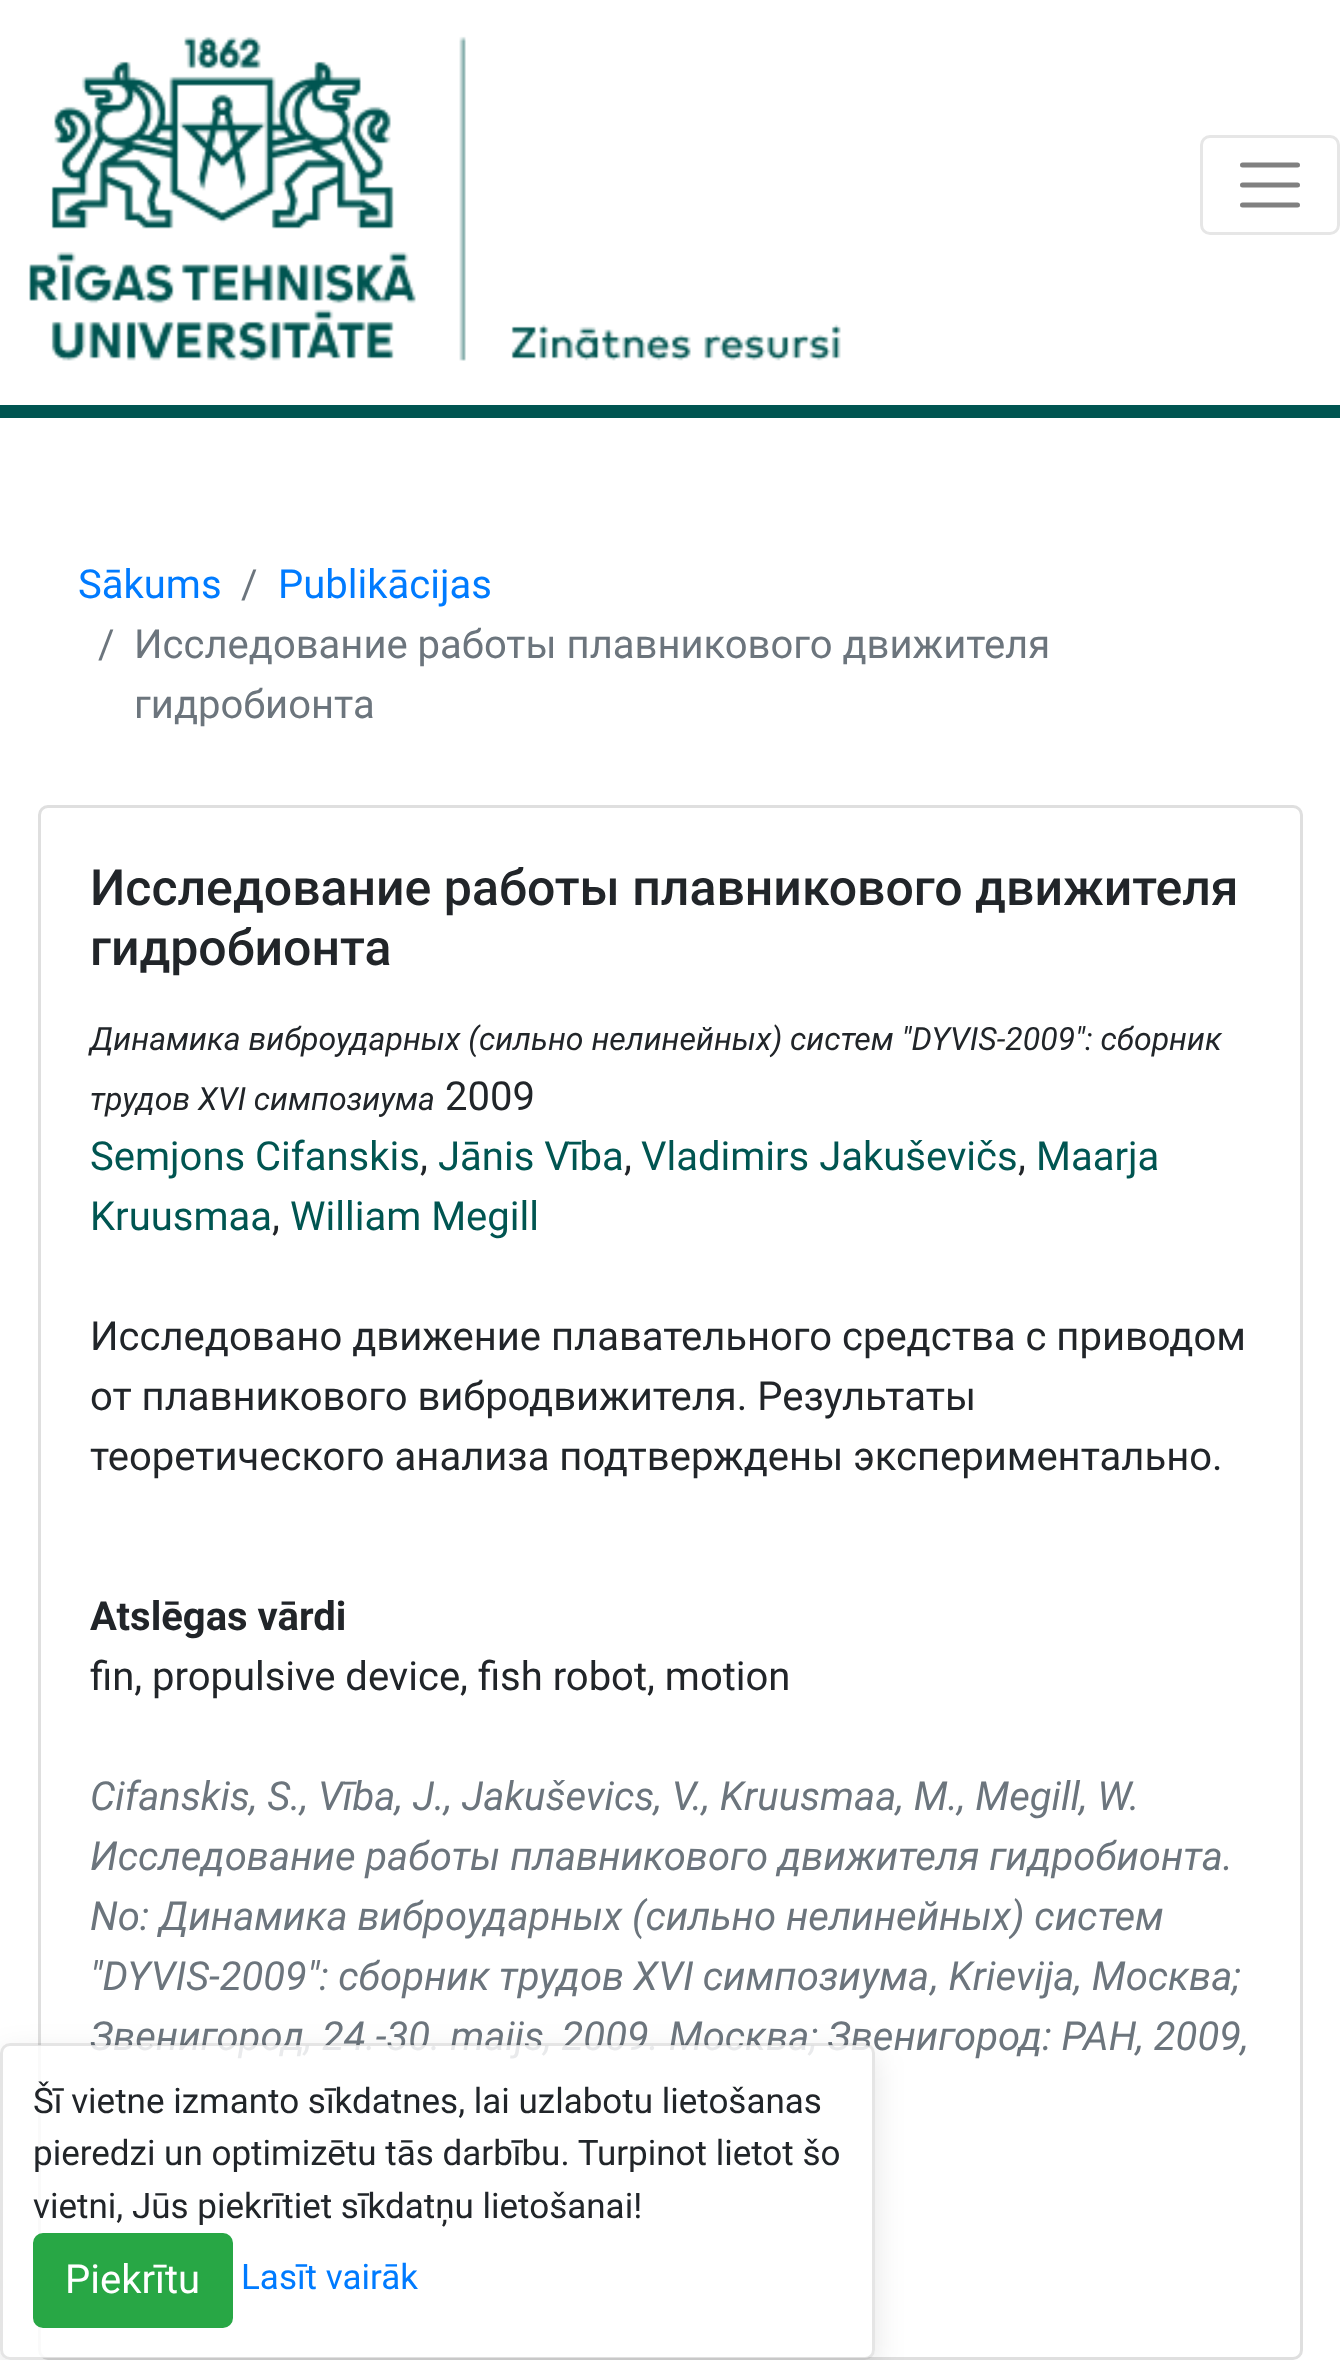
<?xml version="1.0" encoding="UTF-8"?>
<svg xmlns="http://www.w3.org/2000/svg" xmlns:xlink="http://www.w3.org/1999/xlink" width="1340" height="2360">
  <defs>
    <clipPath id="clip1"><path d="M 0 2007 h 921 v 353 h -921 z m 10 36 h 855 c 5.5 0 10 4.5 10 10 v 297 c 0 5.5 -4.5 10 -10 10 h -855 c -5.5 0 -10 -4.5 -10 -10 v -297 c 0 -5.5 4.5 -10 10 -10 z" clip-rule="evenodd" /></clipPath>
  </defs>
  <rect width="100%" height="100%" fill="#ffffff" />
  <rect y="405" width="1340" height="13" fill="#005551" />
  <image x="29" y="36" width="812" height="325" xlink:href="image1.png" />
  <rect x="1201.5" y="136.5" width="137" height="97" rx="8.5" fill="none" stroke="#e6e6e6" stroke-width="3" />
  <path d="M 1242.5 165 h 55 m -55 20 h 55 m -55 20 h 55" fill="none" stroke="#808080" stroke-width="5" stroke-linecap="round" />
  <rect x="39.5" y="806.5" width="1262" height="1552" rx="8.5" fill="none" stroke="#dfdfdf" stroke-width="3" />
  <g clip-path="url(#clip1)">
    <rect y="2053" width="875" height="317" rx="10" fill="#000000" fill-opacity="0.1" filter="blur(15px)" />
  </g>
  <text x="78" y="598" style="font-family: Roboto; font-size: 40px; fill: #007bff">Sākums</text>
  <text x="241" y="598" style="font-family: Roboto; font-size: 40px; fill: #6c757d">/</text>
  <text x="278" y="598" style="font-family: Roboto; font-size: 40px; fill: #007bff">Publikācijas</text>
  <text x="98" y="658" style="font-family: Roboto; font-size: 40px; fill: #6c757d">/</text>
  <text x="134" y="658" style="font-family: Roboto; font-size: 40px; fill: #6c757d">Исследование работы плавникового движителя</text>
  <text x="134" y="718" style="font-family: Roboto; font-size: 40px; fill: #6c757d">гидробионта</text>
  <text x="90" y="905" style="font-family: Roboto; font-size: 50px; font-weight: 500; fill: #212529">Исследование работы плавникового движителя</text>
  <text x="90" y="965" style="font-family: Roboto; font-size: 50px; font-weight: 500; fill: #212529">гидробионта</text>
  <text x="90" y="1050" style="font-family: Roboto; font-size: 32px; font-style: italic; fill: #212529">Динамика виброударных (сильно нелинейных) систем "DYVIS-2009": сборник</text>
  <text x="90" y="1110" style="font-family: Roboto; font-size: 32px; font-style: italic; fill: #212529">трудов XVI симпозиума</text>
  <text x="445" y="1110" style="font-family: Roboto; font-size: 40px; fill: #212529">2009</text>
  <text x="90" y="1170" style="font-family: Roboto; font-size: 40px; fill: #005551">Semjons Cifanskis</text>
  <text x="420" y="1170" style="font-family: Roboto; font-size: 40px; fill: #212529">,</text>
  <text x="438" y="1170" style="font-family: Roboto; font-size: 40px; fill: #005551">Jānis Vība</text>
  <text x="624" y="1170" style="font-family: Roboto; font-size: 40px; fill: #212529">,</text>
  <text x="641" y="1170" style="font-family: Roboto; font-size: 40px; fill: #005551">Vladimirs Jakuševičs</text>
  <text x="1018" y="1170" style="font-family: Roboto; font-size: 40px; fill: #212529">,</text>
  <text x="1036" y="1170" style="font-family: Roboto; font-size: 40px; fill: #005551">Maarja</text>
  <text x="90" y="1230" style="font-family: Roboto; font-size: 40px; fill: #005551">Kruusmaa</text>
  <text x="272" y="1230" style="font-family: Roboto; font-size: 40px; fill: #212529">,</text>
  <text x="290" y="1230" style="font-family: Roboto; font-size: 40px; fill: #005551">William Megill</text>
  <text x="90" y="1350" style="font-family: Roboto; font-size: 40px; fill: #212529">Исследовано движение плавательного средства с приводом</text>
  <text x="90" y="1410" style="font-family: Roboto; font-size: 40px; fill: #212529">от плавникового вибродвижителя. Результаты</text>
  <text x="90" y="1470" style="font-family: Roboto; font-size: 40px; fill: #212529">теоретического анализа подтверждены экспериментально.</text>
  <text x="90" y="1630" style="font-family: Roboto; font-size: 40px; font-weight: bold; fill: #212529">Atslēgas vārdi</text>
  <text x="90" y="1690" style="font-family: Roboto; font-size: 40px; fill: #212529">fin, propulsive device, fish robot, motion</text>
  <text x="90" y="1810" style="font-family: Roboto; font-size: 40px; font-style: italic; fill: #6c757d">Cifanskis, S., Vība, J., Jakuševics, V., Kruusmaa, M., Megill, W.</text>
  <text x="90" y="1870" style="font-family: Roboto; font-size: 40px; font-style: italic; fill: #6c757d">Исследование работы плавникового движителя гидробионта.</text>
  <text x="90" y="1930" style="font-family: Roboto; font-size: 40px; font-style: italic; fill: #6c757d">No: Динамика виброударных (сильно нелинейных) систем</text>
  <text x="90" y="1990" word-spacing="-0.5" style="font-family: Roboto; font-size: 40px; font-style: italic; fill: #6c757d">"DYVIS-2009": сборник трудов XVI симпозиума</text>
  <text x="931" y="1990" style="font-family: Roboto; font-size: 40px; font-style: italic; fill: #6c757d">, Krievija, Москва;</text>
  <text x="90" y="2050" style="font-family: Roboto; font-size: 40px; font-style: italic; fill: #6c757d">Звенигород, 24.-30. maijs, 2009. Москва; Звенигород: РАН, 2009,</text>
  <rect x="3" y="2045" width="870" height="313" rx="8" fill="#ffffff" fill-opacity="0.85" />
  <rect x="1.5" y="2044.5" width="872" height="314" rx="8.5" fill="none" stroke="#000000" stroke-opacity="0.1" stroke-width="3" />
  <text x="33" y="2113" style="font-family: Roboto; font-size: 35px; fill: #212529">Šī vietne izmanto sīkdatnes, lai uzlabotu lietošanas</text>
  <text x="33" y="2165" style="font-family: Roboto; font-size: 35px; fill: #212529">pieredzi un optimizētu tās darbību. Turpinot lietot šo</text>
  <text x="33" y="2218" style="font-family: Roboto; font-size: 35px; fill: #212529">vietni, Jūs piekrītiet sīkdatņu lietošanai!</text>
  <rect x="34.5" y="2234.5" width="197" height="92" rx="8.5" fill="#28a745" stroke="#28a745" stroke-width="3" />
  <text x="65" y="2293" style="font-family: Roboto; font-size: 40px; fill: #ffffff">Piekrītu</text>
  <text x="241" y="2289" style="font-family: Roboto; font-size: 35px; fill: #007bff">Lasīt vairāk</text>
</svg>
